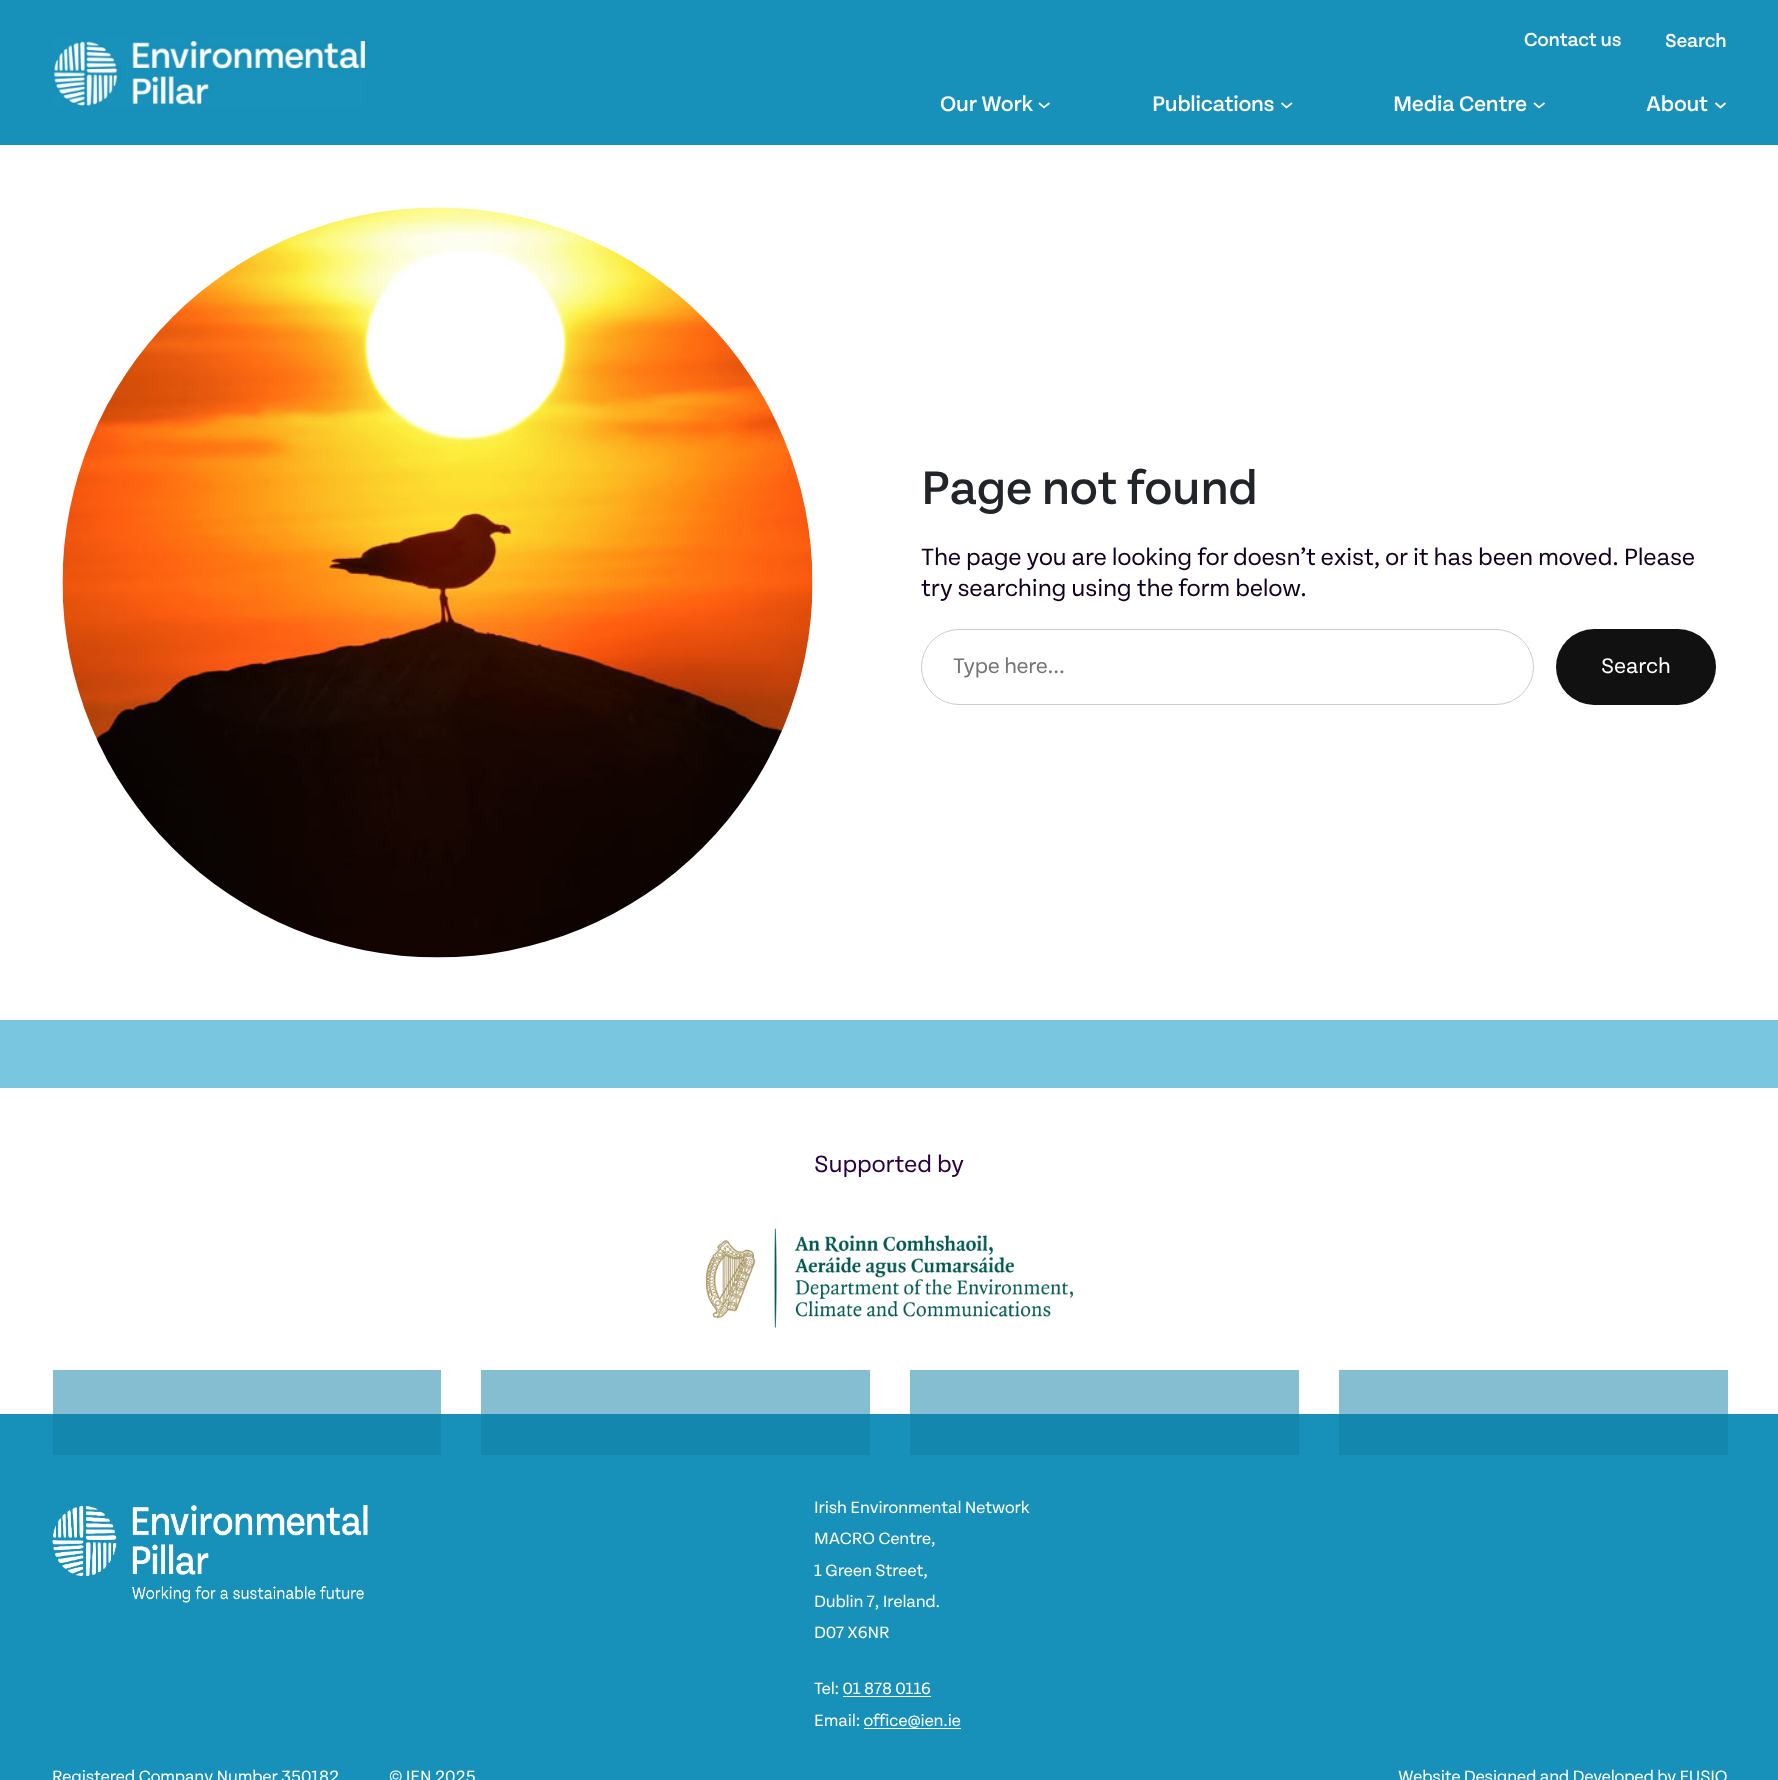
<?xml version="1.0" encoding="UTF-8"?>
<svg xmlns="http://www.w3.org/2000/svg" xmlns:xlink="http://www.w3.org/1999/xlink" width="1778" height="1780">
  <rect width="100%" height="100%" fill="#ffffff" />
  <rect x="1339" y="1370" width="389" height="44" fill="#86bed1" />
  <rect x="910" y="1370" width="389" height="44" fill="#86bed1" />
  <rect x="481" y="1370" width="389" height="44" fill="#86bed1" />
  <rect x="53" y="1370" width="388" height="44" fill="#86bed1" />
  <rect width="1778" height="145" fill="#1891ba" />
  <image x="52" y="37" width="314" height="71" xlink:href="image1.png" />
  <path d="M 1039 103 l 5 4.5 l 5.5 -4.5" fill="none" stroke="#ffffff" stroke-width="1.7" />
  <path d="M 1281.5 103 l 5 4.5 l 5.5 -4.5" fill="none" stroke="#ffffff" stroke-width="1.7" />
  <path d="M 1534 103 l 5 4.5 l 5.5 -4.5" fill="none" stroke="#ffffff" stroke-width="1.7" />
  <path d="M 1715.5 103 l 5 4.5 l 5 -4.5" fill="none" stroke="#ffffff" stroke-width="1.7" />
  <image x="62" y="207" width="751" height="751" xlink:href="image2.png" />
  <rect x="921.5" y="629.5" width="612" height="75" rx="37.5" fill="none" stroke="#cccccc" />
  <rect x="1556" y="629" width="160" height="76" rx="38" fill="#111111" />
  <rect y="1020" width="1778" height="68" fill="#79c6e0" />
  <image x="705" y="1228" width="368" height="100" xlink:href="image3.png" />
  <rect y="1414" width="1778" height="366" fill="#1891ba" />
  <rect x="1339" y="1414" width="389" height="41" fill="#1387ae" />
  <rect x="910" y="1414" width="389" height="41" fill="#1387ae" />
  <rect x="481" y="1414" width="389" height="41" fill="#1387ae" />
  <rect x="53" y="1414" width="388" height="41" fill="#1387ae" />
  <image x="52" y="1505" width="316" height="98" xlink:href="image4.png" />
  <rect x="843" y="1696" width="88" height="1" fill="#ffffff" />
  <rect x="864" y="1728" width="97" height="1" fill="#ffffff" />
  <text x="1524" y="46" style="font-family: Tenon; font-size: 20px; font-weight: 500; letter-spacing: -0.12px; fill: #ffffff">Contact us</text>
  <text x="1665" y="47" style="font-family: Tenon; font-size: 20px; font-weight: 500; letter-spacing: -0.12px; fill: #ffffff">Search</text>
  <text x="940" y="111" style="font-family: Tenon; font-size: 22.5px; font-weight: 500; letter-spacing: -0.12px; fill: #ffffff">Our Work</text>
  <text x="1152" y="111" style="font-family: Tenon; font-size: 22.5px; font-weight: 500; letter-spacing: -0.12px; fill: #ffffff">Publications</text>
  <text x="1393" y="111" style="font-family: Tenon; font-size: 22.5px; font-weight: 500; letter-spacing: -0.12px; fill: #ffffff">Media Centre</text>
  <text x="1646" y="111" style="font-family: Tenon; font-size: 22.5px; font-weight: 500; letter-spacing: -0.12px; fill: #ffffff">About</text>
  <text x="921" y="504" style="font-family: Tenon; font-size: 50px; font-weight: 500; letter-spacing: -0.12px; fill: #212529">Page not found</text>
  <text x="921" y="565" style="font-family: Tenon; font-size: 25px; letter-spacing: -0.12px; fill: #11001e">The page you are looking for doesn’t exist, or it has been moved. Please</text>
  <text x="921" y="596" style="font-family: Tenon; font-size: 25px; letter-spacing: -0.12px; fill: #11001e">try searching using the form below.</text>
  <text x="953" y="673" style="font-family: Tenon; font-size: 22.5px; letter-spacing: -0.12px; fill: #757575">Type here...</text>
  <text x="1601" y="673" style="font-family: Tenon; font-size: 22.5px; fill: #ffffff">Search</text>
  <text x="814" y="1172" style="font-family: Tenon; font-size: 25px; letter-spacing: -0.12px; fill: #270041">Supported by</text>
  <text x="814" y="1513" style="font-family: Tenon; font-size: 17.5px; letter-spacing: -0.12px; fill: #ffffff">Irish Environmental Network</text>
  <text x="814" y="1544" style="font-family: Tenon; font-size: 17.5px; letter-spacing: -0.12px; fill: #ffffff">MACRO Centre,</text>
  <text x="814" y="1576" style="font-family: Tenon; font-size: 17.5px; letter-spacing: -0.12px; fill: #ffffff">1 Green Street,</text>
  <text x="814" y="1607" style="font-family: Tenon; font-size: 17.5px; letter-spacing: -0.12px; fill: #ffffff">Dublin 7, Ireland.</text>
  <text x="814" y="1638" style="font-family: Tenon; font-size: 17.5px; letter-spacing: -0.12px; fill: #ffffff">D07 X6NR</text>
  <text x="814" y="1694" style="font-family: Tenon; font-size: 17.5px; letter-spacing: -0.12px; fill: #ffffff">Tel: 01 878 0116</text>
  <text x="814" y="1726" style="font-family: Tenon; font-size: 17.5px; letter-spacing: -0.12px; fill: #ffffff">Email: office@ien.ie</text>
  <text x="52" y="1782" style="font-family: Tenon; font-size: 17.5px; letter-spacing: -0.12px; fill: #ffffff">Registered Company Number 350182</text>
  <text x="389" y="1782" style="font-family: Tenon; font-size: 17.5px; letter-spacing: -0.12px; fill: #ffffff">© IEN 2025</text>
  <text x="1398" y="1782" style="font-family: Tenon; font-size: 17.5px; letter-spacing: -0.12px; fill: #ffffff">Website Designed and Developed by FUSIO</text>
</svg>
